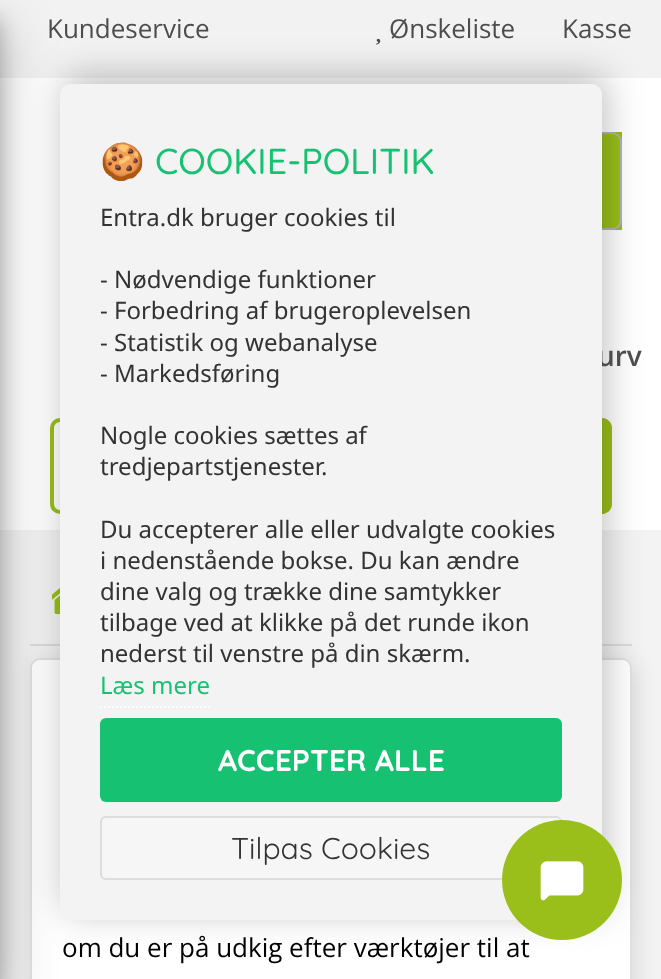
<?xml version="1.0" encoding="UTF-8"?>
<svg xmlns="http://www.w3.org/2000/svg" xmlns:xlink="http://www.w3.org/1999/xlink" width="661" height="979">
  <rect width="100%" height="100%" fill="#ffffff" />
  <rect width="661" height="78" fill="#f2f2f2" />
  <image x="376" y="38" width="5" height="7" xlink:href="image1.png" />
  <rect x="602" y="132" width="20" height="98" fill="#9abf1a" />
  <rect x="525" y="133" width="96" height="96" rx="9" fill="none" stroke="#b2b2b9" stroke-width="2" />
  <path d="M 60 420 h 450 v 92 h -450 c -4.5 0 -8 -3.5 -8 -8 v -76 c 0 -4.5 3.5 -8 8 -8 z" fill="none" stroke="#9abf1a" stroke-width="4" />
  <path d="M 512 418 h 90 c 5.5 0 10 4.5 10 10 v 76 c 0 5.5 -4.5 10 -10 10 h -90 z" fill="#9abf1a" />
  <rect y="530" width="661" height="449" fill="#f3f3f3" />
  <rect x="34" y="662" width="602" height="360" rx="10" fill="#000000" fill-opacity="0.1" filter="blur(11px)" />
  <rect x="30" y="644" width="602" height="2" fill="#dbdbdb" />
  <image x="52" y="588" width="8" height="26" xlink:href="image3.png" />
  <rect x="30" y="658" width="602" height="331" rx="10" fill="#ffffff" />
  <rect x="31" y="659" width="600" height="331" rx="9" fill="none" stroke="#000000" stroke-opacity="0.12" stroke-width="2" />
  <rect x="-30" y="20" width="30" height="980" fill="#000000" fill-opacity="0.22" filter="blur(10px)" />
  <rect x="-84" y="28" width="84" height="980" fill="#000000" fill-opacity="0.25" filter="blur(28px)" />
  <rect x="64" y="76" width="542" height="836" rx="10" fill="#000000" fill-opacity="0.25" filter="blur(18px)" />
  <text x="47" y="38" style="font-family: Open Sans; font-size: 26px; fill: #4d4d4d">Kundeservice</text>
  <text x="389" y="38" style="font-family: Open Sans; font-size: 26px; fill: #4d4d4d">Ønskeliste</text>
  <text x="562" y="38" style="font-family: Open Sans; font-size: 26px; fill: #4d4d4d">Kasse</text>
  <text x="597" y="366" style="font-family: Open Sans; font-size: 28px; font-weight: 600; fill: #4d4d4d">urv</text>
  <text x="62" y="957" style="font-family: Open Sans; font-size: 26px; fill: #000000">om du er på udkig efter værktøjer til at</text>
  <rect x="60" y="84" width="542" height="836" rx="10" fill="#f3f3f3" />
  <text x="100" y="174" style="font-family: Noto Color Emoji; font-size: 36px; fill: #16c272">🍪</text>
  <text x="155" y="174" style="font-family: Quicksand; font-size: 36px; font-weight: 500; fill: #16c272">COOKIE-POLITIK</text>
  <text x="100" y="226" style="font-family: Noto Sans; font-size: 24px; fill: #333333">Entra.dk bruger cookies til</text>
  <text x="100" y="288" style="font-family: Noto Sans; font-size: 24px; fill: #333333">- Nødvendige funktioner</text>
  <text x="100" y="319" style="font-family: Noto Sans; font-size: 24px; fill: #333333">- Forbedring af brugeroplevelsen</text>
  <text x="100" y="351" style="font-family: Noto Sans; font-size: 24px; fill: #333333">- Statistik og webanalyse</text>
  <text x="100" y="382" style="font-family: Noto Sans; font-size: 24px; fill: #333333">- Markedsføring</text>
  <text x="100" y="444" style="font-family: Noto Sans; font-size: 24px; fill: #333333">Nogle cookies sættes af</text>
  <text x="100" y="475" style="font-family: Noto Sans; font-size: 24px; fill: #333333">tredjepartstjenester.</text>
  <text x="100" y="538" style="font-family: Noto Sans; font-size: 24px; fill: #333333">Du accepterer alle eller udvalgte cookies</text>
  <text x="100" y="569" style="font-family: Noto Sans; font-size: 24px; fill: #333333">i nedenstående bokse. Du kan ændre</text>
  <text x="100" y="600" style="font-family: Noto Sans; font-size: 24px; fill: #333333">dine valg og trække dine samtykker</text>
  <text x="100" y="631" style="font-family: Noto Sans; font-size: 24px; fill: #333333">tilbage ved at klikke på det runde ikon</text>
  <text x="100" y="662" style="font-family: Noto Sans; font-size: 24px; fill: #333333">nederst til venstre på din skærm.</text>
  <text x="100" y="694" style="font-family: Noto Sans; font-size: 24px; fill: #16c272">Læs mere</text>
  <path d="M 100 707 h 110" fill="none" stroke="#fcfcfc" stroke-width="2" stroke-dasharray="2 2" />
  <rect x="100" y="718" width="462" height="84" rx="6" fill="#16c272" />
  <text x="218" y="771" style="font-family: Quicksand; font-size: 30px; font-weight: bold; fill: #ffffff">ACCEPTER ALLE</text>
  <rect x="101" y="817" width="460" height="62" rx="5" fill="#f6f6f6" stroke="#dddddd" stroke-width="2" />
  <circle cx="562" cy="880" r="60" fill="#9abf1a" />
  <image x="540" y="861" width="44" height="40" xlink:href="image2.png" />
  <text x="231" y="859" style="font-family: Quicksand; font-size: 30px; fill: #333333">Tilpas Cookies</text>
</svg>
